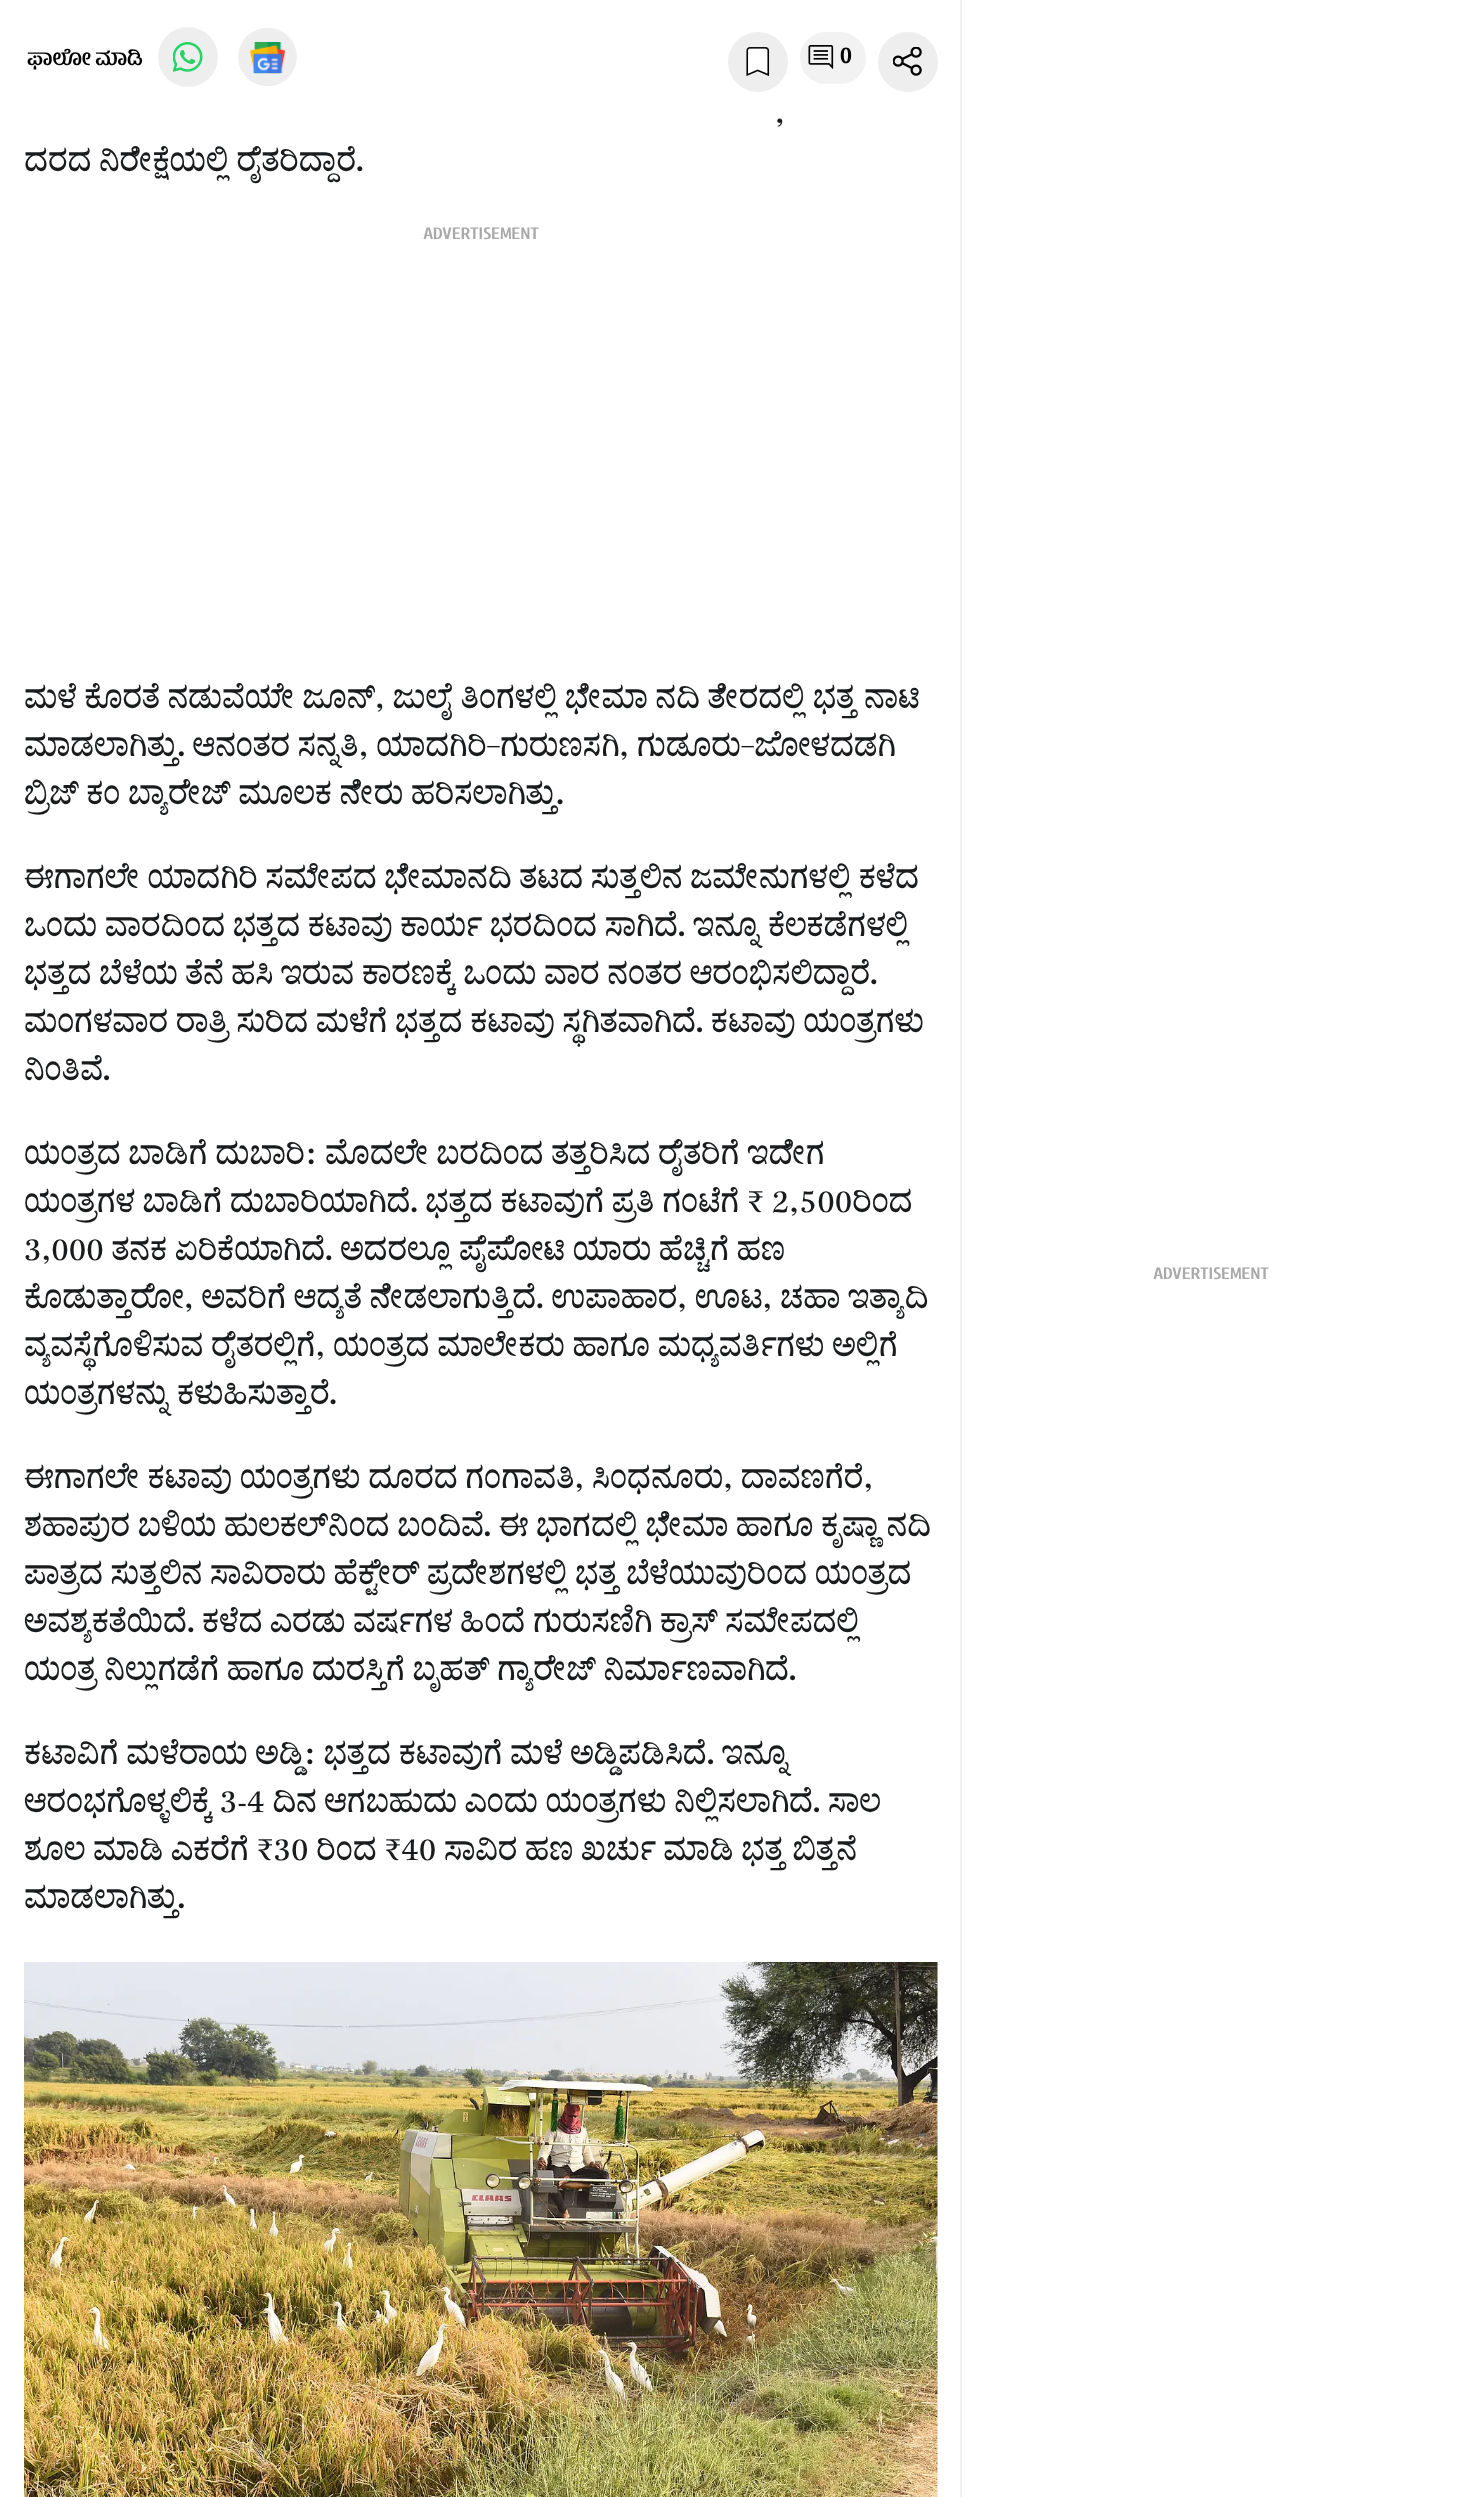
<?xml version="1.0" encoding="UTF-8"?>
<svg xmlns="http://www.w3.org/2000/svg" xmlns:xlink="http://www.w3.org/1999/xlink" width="1463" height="2497">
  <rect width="100%" height="100%" fill="#ffffff" />
  <circle cx="188" cy="57" r="30" fill="#eeeeee" />
  <image x="173" y="42" width="30" height="30" xlink:href="image1.png" />
  <image x="238" y="28" width="59" height="58" xlink:href="image2.png" />
  <circle cx="758" cy="62" r="30" fill="#eeeeee" />
  <image x="746" y="47" width="24" height="29" xlink:href="image3.png" />
  <rect x="801" y="33" width="64" height="50" rx="25" fill="#f2f2f2" stroke="#f2f2f2" stroke-width="2" />
  <image x="808" y="45" width="26" height="25" xlink:href="image4.png" />
  <circle cx="908" cy="62" r="30" fill="#eeeeee" />
  <image x="893" y="47" width="29" height="29" xlink:href="image5.png" />
  <image x="24" y="1962" width="914" height="535" xlink:href="image6.png" />
  <rect x="960" width="2" height="2497" fill="#efeff0" />
  <text x="27" y="65" style="font-family: 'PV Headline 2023'; font-size: 21px; font-weight: 600; fill: #000000">ಫಾಲೋ ಮಾಡಿ</text>
  <text x="840" y="63" style="font-family: 'PV Headline 2023'; font-size: 24px; font-weight: 600; fill: #000000">0</text>
  <text x="775" y="123" style="font-family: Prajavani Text; font-size: 30px; fill: #191b1d">,</text>
  <text x="24" y="171" style="font-family: Prajavani Text; font-size: 30px; fill: #191b1d">ದರದ ನಿರೀಕ್ಷೆಯಲ್ಲಿ ರೈತರಿದ್ದಾರೆ.</text>
  <text x="423" y="239" style="font-family: 'PV Headline 2023'; font-size: 18px; font-weight: 600; fill: #a9a9a9">ADVERTISEMENT</text>
  <text x="24" y="708" style="font-family: Prajavani Text; font-size: 30px; fill: #191b1d">ಮಳೆ ಕೊರತೆ ನಡುವೆಯೇ ಜೂನ್‌, ಜುಲೈ ತಿಂಗಳಲ್ಲಿ ಭೀಮಾ ನದಿ ತೀರದಲ್ಲಿ ಭತ್ತ ನಾಟಿ</text>
  <text x="24" y="756" style="font-family: Prajavani Text; font-size: 30px; fill: #191b1d">ಮಾಡಲಾಗಿತ್ತು. ಆನಂತರ ಸನ್ನತಿ, ಯಾದಗಿರಿ–ಗುರುಣಸಗಿ, ಗುಡೂರು–ಜೋಳದಡಗಿ</text>
  <text x="24" y="804" style="font-family: Prajavani Text; font-size: 30px; fill: #191b1d">ಬ್ರಿಜ್‌ ಕಂ ಬ್ಯಾರೇಜ್‌ ಮೂಲಕ ನೀರು ಹರಿಸಲಾಗಿತ್ತು.</text>
  <text x="24" y="888" style="font-family: Prajavani Text; font-size: 30px; fill: #191b1d">ಈಗಾಗಲೇ ಯಾದಗಿರಿ ಸಮೀಪದ ಭೀಮಾನದಿ ತಟದ ಸುತ್ತಲಿನ ಜಮೀನುಗಳಲ್ಲಿ ಕಳೆದ</text>
  <text x="24" y="936" style="font-family: Prajavani Text; font-size: 30px; fill: #191b1d">ಒಂದು ವಾರದಿಂದ ಭತ್ತದ ಕಟಾವು ಕಾರ್ಯ ಭರದಿಂದ ಸಾಗಿದೆ. ಇನ್ನೂ ಕೆಲಕಡೆಗಳಲ್ಲಿ</text>
  <text x="24" y="984" style="font-family: Prajavani Text; font-size: 30px; fill: #191b1d">ಭತ್ತದ ಬೆಳೆಯ ತೆನೆ ಹಸಿ ಇರುವ ಕಾರಣಕ್ಕೆ ಒಂದು ವಾರ ನಂತರ ಆರಂಭಿಸಲಿದ್ದಾರೆ.</text>
  <text x="24" y="1032" style="font-family: Prajavani Text; font-size: 30px; fill: #191b1d">ಮಂಗಳವಾರ ರಾತ್ರಿ ಸುರಿದ ಮಳೆಗೆ ಭತ್ತದ ಕಟಾವು ಸ್ಥಗಿತವಾಗಿದೆ. ಕಟಾವು ಯಂತ್ರಗಳು</text>
  <text x="24" y="1080" style="font-family: Prajavani Text; font-size: 30px; fill: #191b1d">ನಿಂತಿವೆ.</text>
  <text x="24" y="1164" style="font-family: Prajavani Text; font-size: 30px; fill: #191b1d">ಯಂತ್ರದ ಬಾಡಿಗೆ ದುಬಾರಿ: ಮೊದಲೇ ಬರದಿಂದ ತತ್ತರಿಸಿದ ರೈತರಿಗೆ ಇದೀಗ</text>
  <text x="24" y="1212" style="font-family: Prajavani Text; font-size: 30px; fill: #191b1d">ಯಂತ್ರಗಳ ಬಾಡಿಗೆ ದುಬಾರಿಯಾಗಿದೆ. ಭತ್ತದ ಕಟಾವುಗೆ ಪ್ರತಿ ಗಂಟೆಗೆ ₹ 2,500ರಿಂದ</text>
  <text x="24" y="1260" style="font-family: Prajavani Text; font-size: 30px; fill: #191b1d">3,000 ತನಕ ಏರಿಕೆಯಾಗಿದೆ. ಅದರಲ್ಲೂ ಪೈಪೋಟಿ ಯಾರು ಹೆಚ್ಚಿಗೆ ಹಣ</text>
  <text x="24" y="1308" style="font-family: Prajavani Text; font-size: 30px; fill: #191b1d">ಕೊಡುತ್ತಾರೋ, ಅವರಿಗೆ ಆದ್ಯತೆ ನೀಡಲಾಗುತ್ತಿದೆ. ಉಪಾಹಾರ, ಊಟ, ಚಹಾ ಇತ್ಯಾದಿ</text>
  <text x="24" y="1356" style="font-family: Prajavani Text; font-size: 30px; fill: #191b1d">ವ್ಯವಸ್ಥೆಗೊಳಿಸುವ ರೈತರಲ್ಲಿಗೆ, ಯಂತ್ರದ ಮಾಲೀಕರು ಹಾಗೂ ಮಧ್ಯವರ್ತಿಗಳು ಅಲ್ಲಿಗೆ</text>
  <text x="24" y="1404" style="font-family: Prajavani Text; font-size: 30px; fill: #191b1d">ಯಂತ್ರಗಳನ್ನು ಕಳುಹಿಸುತ್ತಾರೆ.</text>
  <text x="24" y="1488" style="font-family: Prajavani Text; font-size: 30px; fill: #191b1d">ಈಗಾಗಲೇ ಕಟಾವು ಯಂತ್ರಗಳು ದೂರದ ಗಂಗಾವತಿ, ಸಿಂಧನೂರು, ದಾವಣಗೆರೆ,</text>
  <text x="24" y="1536" style="font-family: Prajavani Text; font-size: 30px; fill: #191b1d">ಶಹಾಪುರ ಬಳಿಯ ಹುಲಕಲ್‌ನಿಂದ ಬಂದಿವೆ. ಈ ಭಾಗದಲ್ಲಿ ಭೀಮಾ ಹಾಗೂ ಕೃಷ್ಣಾ ನದಿ</text>
  <text x="24" y="1584" style="font-family: Prajavani Text; font-size: 30px; fill: #191b1d">ಪಾತ್ರದ ಸುತ್ತಲಿನ ಸಾವಿರಾರು ಹೆಕ್ಟೇರ್ ಪ್ರದೇಶಗಳಲ್ಲಿ ಭತ್ತ ಬೆಳೆಯುವುರಿಂದ ಯಂತ್ರದ</text>
  <text x="24" y="1632" style="font-family: Prajavani Text; font-size: 30px; fill: #191b1d">ಅವಶ್ಯಕತೆಯಿದೆ. ಕಳೆದ ಎರಡು ವರ್ಷಗಳ ಹಿಂದೆ ಗುರುಸಣಿಗಿ ಕ್ರಾಸ್ ಸಮೀಪದಲ್ಲಿ</text>
  <text x="24" y="1680" style="font-family: Prajavani Text; font-size: 30px; fill: #191b1d">ಯಂತ್ರ ನಿಲ್ಲುಗಡೆಗೆ ಹಾಗೂ ದುರಸ್ತಿಗೆ ಬೃಹತ್ ಗ್ಯಾರೇಜ್ ನಿರ್ಮಾಣವಾಗಿದೆ.</text>
  <text x="24" y="1764" style="font-family: Prajavani Text; font-size: 30px; fill: #191b1d">ಕಟಾವಿಗೆ ಮಳೆರಾಯ ಅಡ್ಡಿ: ಭತ್ತದ ಕಟಾವುಗೆ ಮಳೆ ಅಡ್ಡಿಪಡಿಸಿದೆ. ಇನ್ನೂ</text>
  <text x="24" y="1812" style="font-family: Prajavani Text; font-size: 30px; fill: #191b1d">ಆರಂಭಗೊಳ್ಳಲಿಕ್ಕೆ 3-4 ದಿನ ಆಗಬಹುದು ಎಂದು ಯಂತ್ರಗಳು ನಿಲ್ಲಿಸಲಾಗಿದೆ. ಸಾಲ</text>
  <text x="24" y="1860" style="font-family: Prajavani Text; font-size: 30px; fill: #191b1d">ಶೂಲ ಮಾಡಿ ಎಕರೆಗೆ ₹30 ರಿಂದ ₹40 ಸಾವಿರ ಹಣ ಖರ್ಚು ಮಾಡಿ ಭತ್ತ ಬಿತ್ತನೆ</text>
  <text x="24" y="1908" style="font-family: Prajavani Text; font-size: 30px; fill: #191b1d">ಮಾಡಲಾಗಿತ್ತು.</text>
  <text x="1153" y="1279" style="font-family: 'PV Headline 2023'; font-size: 18px; font-weight: 600; fill: #a9a9a9">ADVERTISEMENT</text>
</svg>
